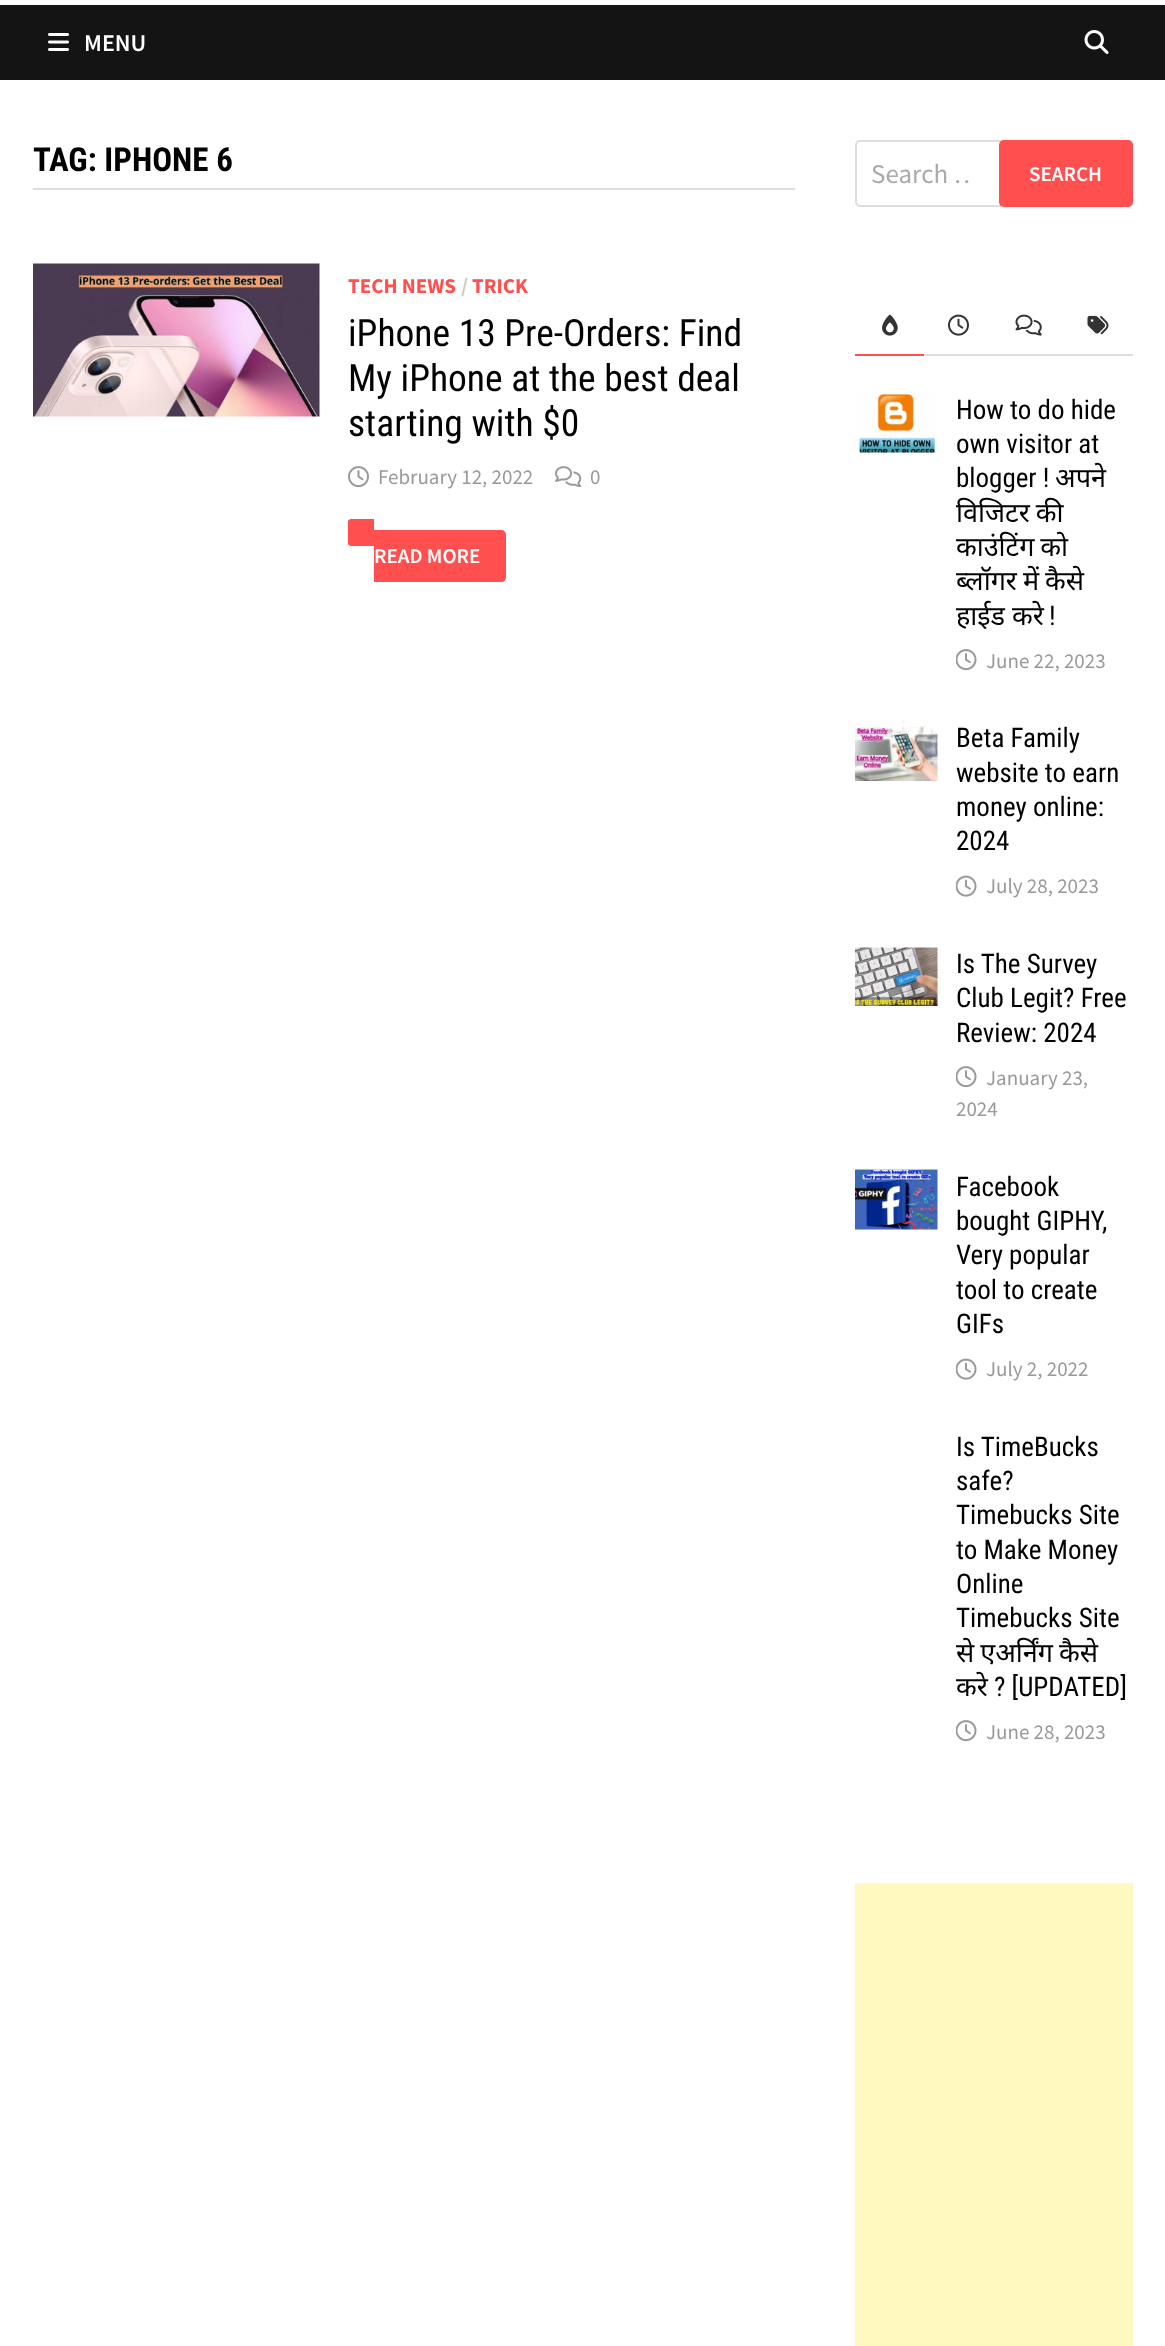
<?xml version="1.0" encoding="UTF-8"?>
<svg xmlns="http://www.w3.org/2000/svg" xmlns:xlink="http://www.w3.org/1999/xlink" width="1165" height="2346">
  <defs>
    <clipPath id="clip1"><rect x="348" y="264" width="447" height="348" /></clipPath>
    <clipPath id="clip2"><rect x="872" y="156" width="100" height="35" /></clipPath>
    <clipPath id="clip3"><rect x="956" y="1431" width="177" height="317" /></clipPath>
  </defs>
  <rect width="100%" height="100%" fill="#ffffff" />
  <rect y="5" width="1165" height="75" fill="#141414" />
  <image x="48" y="33" width="21" height="18" xlink:href="image1.png" />
  <image x="1084" y="30" width="25" height="24" xlink:href="image2.png" />
  <rect x="33" y="188" width="762" height="2" fill="#dddddd" />
  <image x="33" y="263" width="287" height="154" xlink:href="image3.png" />
  <image x="348" y="466" width="21" height="22" xlink:href="image4.png" />
  <image x="555" y="466" width="27" height="22" xlink:href="image5.png" />
  <g clip-path="url(#clip1)">
    <path d="M 352 519 h 22 v 27 h -22 c -3 0 -5 -2 -5 -5 v -17 c 0 -3 2 -5 5 -5 z" fill="#ff4f4f" />
  </g>
  <path d="M 374 530 h 127 c 3 0 5 2 5 5 v 42 c 0 3 -2 5 -5 5 h -127 z" fill="#ff4f4f" />
  <rect x="856" y="141" width="276" height="65" rx="4" fill="none" stroke="#dddddd" stroke-width="2" />
  <rect x="999" y="140" width="134" height="67" rx="5" fill="#ff4f4f" />
  <rect x="855" y="354" width="69" height="2" fill="#ff4f4f" />
  <image x="882" y="314" width="16" height="22" xlink:href="image6.png" />
  <rect x="924" y="354" width="209" height="2" fill="#dddddd" />
  <image x="948" y="314" width="21" height="22" xlink:href="image7.png" />
  <image x="1015" y="314" width="27" height="22" xlink:href="image8.png" />
  <image x="1087" y="315" width="22" height="20" xlink:href="image9.png" />
  <image x="855" y="392" width="83" height="61" xlink:href="image10.png" />
  <image x="956" y="649" width="21" height="22" xlink:href="image11.png" />
  <image x="855" y="721" width="83" height="60" xlink:href="image12.png" />
  <image x="956" y="875" width="21" height="22" xlink:href="image13.png" />
  <image x="855" y="947" width="83" height="59" xlink:href="image14.png" />
  <image x="956" y="1066" width="21" height="22" xlink:href="image11.png" />
  <image x="855" y="1169" width="83" height="61" xlink:href="image15.png" />
  <image x="956" y="1358" width="21" height="22" xlink:href="image13.png" />
  <image x="956" y="1720" width="21" height="22" xlink:href="image11.png" />
  <rect x="855" y="1883" width="278" height="463" fill="#fff9c0" />
  <text x="84" y="51" style="font-family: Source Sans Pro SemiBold; font-size: 24px; font-weight: 600; fill: #ffffff">MENU</text>
  <text x="33" y="171" style="font-family: Roboto Condensed; font-size: 33px; font-weight: bold; fill: #000000">TAG: IPHONE 6</text>
  <text x="348" y="293" style="font-family: Source Sans Pro; font-size: 21px; font-weight: bold; fill: #ff4f4f">TECH NEWS</text>
  <text x="461" y="293" style="font-family: Source Sans Pro; font-size: 21px; font-weight: bold; fill: #cccccc">/</text>
  <text x="472" y="293" style="font-family: Source Sans Pro; font-size: 21px; font-weight: bold; fill: #ff4f4f">TRICK</text>
  <text x="348" y="346" style="font-family: Roboto Condensed; font-size: 37.5px; fill: #000000">iPhone 13 Pre-Orders: Find</text>
  <text x="348" y="391" style="font-family: Roboto Condensed; font-size: 37.5px; fill: #000000">My iPhone at the best deal</text>
  <text x="348" y="436" style="font-family: Roboto Condensed; font-size: 37.5px; fill: #000000">starting with $0</text>
  <text x="378" y="484" style="font-family: Source Sans Pro; font-size: 21px; fill: #999999">February 12, 2022</text>
  <text x="590" y="484" style="font-family: Source Sans Pro; font-size: 21px; fill: #999999">0</text>
  <text x="374" y="563" style="font-family: Source Sans Pro SemiBold; font-size: 21px; font-weight: 600; fill: #ffffff">READ MORE</text>
  <g clip-path="url(#clip2)">
    <text x="871" y="183" style="font-family: Source Sans Pro; font-size: 27px; fill: #aaaaaa">Search …</text>
  </g>
  <text x="1029" y="181" style="font-family: Source Sans Pro SemiBold; font-size: 21px; font-weight: 600; fill: #ffffff">SEARCH</text>
  <text x="956" y="419" style="font-family: Roboto Condensed; font-size: 27px; fill: #000000">How to do hide</text>
  <text x="956" y="453" style="font-family: Roboto Condensed; font-size: 27px; fill: #000000">own visitor at</text>
  <text x="956" y="487" style="font-family: Roboto Condensed; font-size: 27px; fill: #000000">blogger !</text>
  <text x="1055" y="487" style="font-family: Noto Sans; font-size: 27px; fill: #000000">अपने</text>
  <text x="956" y="522" word-spacing="-1" style="font-family: Noto Sans; font-size: 27px; fill: #000000">विजिटर की</text>
  <text x="956" y="556" word-spacing="-1" style="font-family: Noto Sans; font-size: 27px; fill: #000000">काउंटिंग को</text>
  <text x="956" y="590" word-spacing="-1" style="font-family: Noto Sans; font-size: 27px; fill: #000000">ब्लॉगर में कैसे</text>
  <text x="956" y="625" style="font-family: Noto Sans; font-size: 27px; fill: #000000">हाईड करे</text>
  <text x="1049" y="625" style="font-family: Roboto Condensed; font-size: 27px; fill: #000000">!</text>
  <text x="986" y="668" style="font-family: Source Sans Pro; font-size: 21px; fill: #999999">June 22, 2023</text>
  <text x="956" y="747" style="font-family: Roboto Condensed; font-size: 27px; fill: #000000">Beta Family</text>
  <text x="956" y="782" style="font-family: Roboto Condensed; font-size: 27px; fill: #000000">website to earn</text>
  <text x="956" y="816" style="font-family: Roboto Condensed; font-size: 27px; fill: #000000">money online:</text>
  <text x="956" y="850" style="font-family: Roboto Condensed; font-size: 27px; fill: #000000">2024</text>
  <text x="986" y="893" style="font-family: Source Sans Pro; font-size: 21px; fill: #999999">July 28, 2023</text>
  <text x="956" y="973" style="font-family: Roboto Condensed; font-size: 27px; fill: #000000">Is The Survey</text>
  <text x="956" y="1007" style="font-family: Roboto Condensed; font-size: 27px; fill: #000000">Club Legit? Free</text>
  <text x="956" y="1042" style="font-family: Roboto Condensed; font-size: 27px; fill: #000000">Review: 2024</text>
  <text x="986" y="1085" style="font-family: Source Sans Pro; font-size: 21px; fill: #999999">January 23,</text>
  <text x="956" y="1116" style="font-family: Source Sans Pro; font-size: 21px; fill: #999999">2024</text>
  <text x="956" y="1196" style="font-family: Roboto Condensed; font-size: 27px; fill: #000000">Facebook</text>
  <text x="956" y="1230" style="font-family: Roboto Condensed; font-size: 27px; fill: #000000">bought GIPHY,</text>
  <text x="956" y="1264" style="font-family: Roboto Condensed; font-size: 27px; fill: #000000">Very popular</text>
  <text x="956" y="1299" style="font-family: Roboto Condensed; font-size: 27px; fill: #000000">tool to create</text>
  <text x="956" y="1333" style="font-family: Roboto Condensed; font-size: 27px; fill: #000000">GIFs</text>
  <text x="986" y="1376" style="font-family: Source Sans Pro; font-size: 21px; fill: #999999">July 2, 2022</text>
  <text x="956" y="1456" style="font-family: Roboto Condensed; font-size: 27px; fill: #000000">Is TimeBucks</text>
  <text x="956" y="1490" style="font-family: Roboto Condensed; font-size: 27px; fill: #000000">safe?</text>
  <text x="956" y="1524" style="font-family: Roboto Condensed; font-size: 27px; fill: #000000">Timebucks Site</text>
  <text x="956" y="1559" style="font-family: Roboto Condensed; font-size: 27px; fill: #000000">to Make Money</text>
  <text x="956" y="1593" style="font-family: Roboto Condensed; font-size: 27px; fill: #000000">Online</text>
  <text x="956" y="1627" style="font-family: Roboto Condensed; font-size: 27px; fill: #000000">Timebucks Site</text>
  <g clip-path="url(#clip3)">
    <text x="956" y="1662" word-spacing="-1" style="font-family: Noto Sans; font-size: 27px; fill: #000000">से एअर्निंग कैसे</text>
  </g>
  <text x="956" y="1696" style="font-family: Noto Sans; font-size: 27px; fill: #000000">करे</text>
  <text x="994" y="1696" style="font-family: Roboto Condensed; font-size: 27px; fill: #000000">? [UPDATED]</text>
  <text x="986" y="1739" style="font-family: Source Sans Pro; font-size: 21px; fill: #999999">June 28, 2023</text>
</svg>
